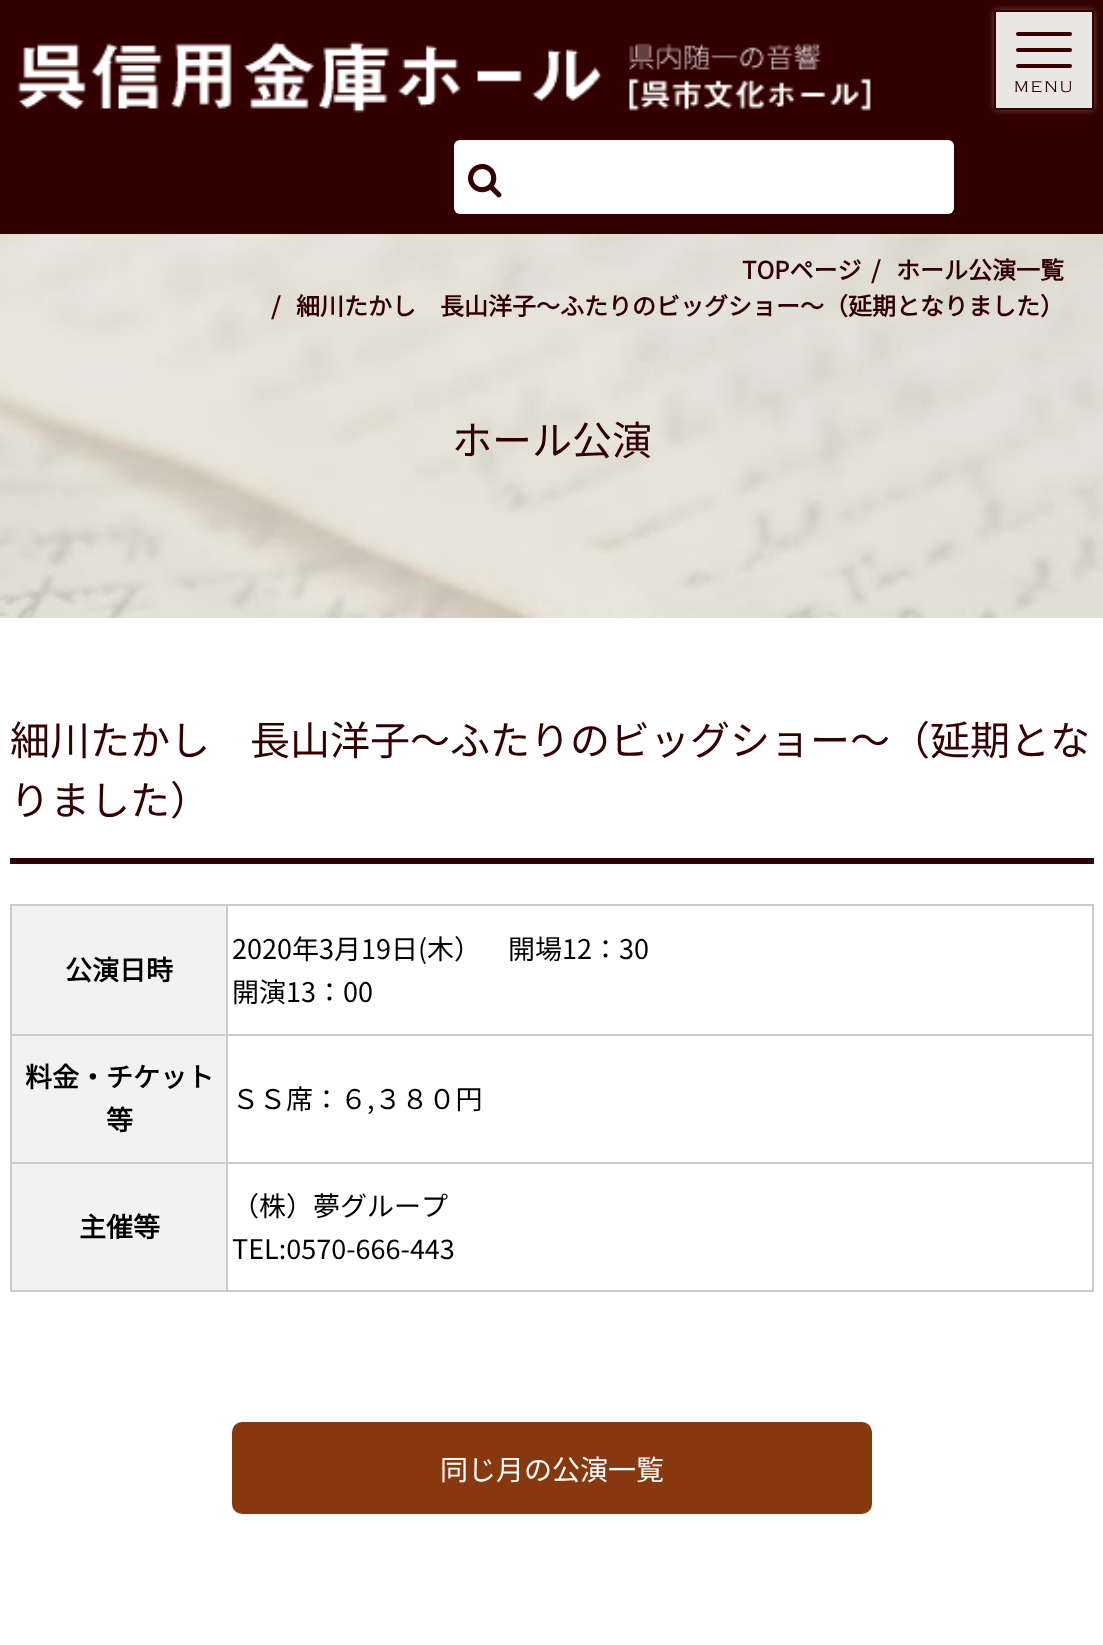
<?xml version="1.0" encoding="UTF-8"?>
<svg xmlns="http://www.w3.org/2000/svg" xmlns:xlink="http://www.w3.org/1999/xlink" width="1103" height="1645">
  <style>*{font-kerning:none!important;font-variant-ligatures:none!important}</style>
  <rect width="100%" height="100%" fill="#ffffff" />
  <rect width="1103" height="234" fill="#320000" />
  <rect x="994" y="10" width="100" height="100" fill="#ffffff" fill-opacity="0.3" filter="blur(3px)" />
  <rect x="995" y="11" width="98" height="98" fill="#ebe6e6" stroke="#320000" stroke-width="2" />
  <rect x="1016" y="32" width="56" height="4" rx="2" fill="#320000" />
  <rect x="1016" y="48" width="56" height="4" rx="2" fill="#320000" />
  <rect x="1016" y="64" width="56" height="4" rx="2" fill="#320000" />
  <image x="17" y="41" width="854" height="72" xlink:href="image1.png" />
  <rect x="454" y="140" width="500" height="74" rx="6" fill="#ffffff" />
  <image x="468" y="163" width="34" height="35" xlink:href="image2.png" />
  <image x="0" y="234" width="1103" height="384" xlink:href="image3.png" />
  <rect x="10" y="858" width="1084" height="6" fill="#320000" />
  <rect x="12" y="906" width="214" height="128" fill="#f2f2f2" />
  <rect x="226" y="904" width="868" height="2" fill="#cccccc" />
  <rect x="226" y="1034" width="868" height="2" fill="#cccccc" />
  <rect x="226" y="1162" width="868" height="2" fill="#cccccc" />
  <rect x="1092" y="1162" width="2" height="130" fill="#cccccc" />
  <rect x="226" y="1290" width="868" height="2" fill="#cccccc" />
  <rect x="226" y="1162" width="2" height="130" fill="#cccccc" />
  <rect x="10" y="1162" width="218" height="2" fill="#cccccc" />
  <rect x="226" y="1034" width="2" height="130" fill="#cccccc" />
  <rect x="10" y="1034" width="218" height="2" fill="#cccccc" />
  <rect x="226" y="904" width="2" height="132" fill="#cccccc" />
  <rect x="10" y="904" width="218" height="2" fill="#cccccc" />
  <rect x="10" y="1290" width="218" height="2" fill="#cccccc" />
  <rect x="10" y="1162" width="2" height="130" fill="#cccccc" />
  <rect x="10" y="1034" width="2" height="130" fill="#cccccc" />
  <rect x="10" y="904" width="2" height="132" fill="#cccccc" />
  <rect x="1092" y="1034" width="2" height="130" fill="#cccccc" />
  <rect x="1092" y="904" width="2" height="132" fill="#cccccc" />
  <rect x="12" y="1036" width="214" height="126" fill="#f2f2f2" />
  <rect x="12" y="1164" width="214" height="126" fill="#f2f2f2" />
  <rect x="232" y="1422" width="640" height="92" rx="10" fill="#88380f" />
  <text x="1014" y="92" style="font-family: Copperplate; font-size: 16px; font-weight: 300; letter-spacing: 2px; fill: #320000">MENU</text>
  <text x="742" y="279" style="font-family: Noto Sans JP; font-size: 24px; font-weight: bold; fill: #320000">TOPページ</text>
  <text x="871" y="279" style="font-family: Noto Sans JP; font-size: 24px; font-weight: bold; fill: #320000">/</text>
  <text x="896" y="279" style="font-family: Noto Sans JP; font-size: 24px; font-weight: bold; fill: #320000">ホール公演一覧</text>
  <text x="271" y="315" style="font-family: Noto Sans JP; font-size: 24px; font-weight: bold; fill: #320000">/</text>
  <text x="296" y="315" style="font-family: Noto Sans JP; font-size: 24px; font-weight: bold; fill: #320000">細川たかし　長山洋子～ふたりのビッグショー～（延期となりました）</text>
  <text x="452" y="455" style="font-family: Noto Sans JP; font-size: 40px; font-weight: 100; fill: #320000">ホール公演</text>
  <text x="10" y="755" style="font-family: Noto Sans JP; font-size: 40px; font-weight: 100; fill: #320000">細川たかし　長山洋子～ふたりのビッグショー～（延期とな</text>
  <text x="10" y="815" style="font-family: Noto Sans JP; font-size: 40px; font-weight: 100; fill: #320000">りました）</text>
  <text x="65" y="980" style="font-family: Noto Sans JP; font-size: 27px; font-weight: bold; fill: #000000">公演日時</text>
  <text x="232" y="959" style="font-family: Noto Sans JP; font-size: 27px; font-weight: 100; fill: #000000">2020年3月19日(木）</text>
  <text x="481" y="959" style="font-family: Noto Sans JP; font-size: 27px; font-weight: 100; fill: #000000">　開場12：30</text>
  <text x="232" y="1002" style="font-family: Noto Sans JP; font-size: 27px; font-weight: 100; fill: #000000">開演13：00</text>
  <text x="25" y="1087" style="font-family: Noto Sans JP; font-size: 27px; font-weight: bold; fill: #000000">料金・チケット</text>
  <text x="106" y="1130" style="font-family: Noto Sans JP; font-size: 27px; font-weight: bold; fill: #000000">等</text>
  <text x="232" y="1109" style="font-family: Noto Sans JP; font-size: 27px; font-weight: 100; fill: #000000">ＳＳ席：６,３８０円</text>
  <text x="79" y="1237" style="font-family: Noto Sans JP; font-size: 27px; font-weight: bold; fill: #000000">主催等</text>
  <text x="232" y="1216" style="font-family: Noto Sans JP; font-size: 27px; font-weight: 100; fill: #000000">（株）夢グループ</text>
  <text x="232" y="1259" style="font-family: Noto Sans JP; font-size: 27px; font-weight: 100; fill: #000000">TEL:0570-666-443</text>
  <text x="440" y="1480" style="font-family: Noto Sans JP; font-size: 28px; font-weight: 100; fill: #ffffff">同じ月の公演一覧</text>
</svg>
